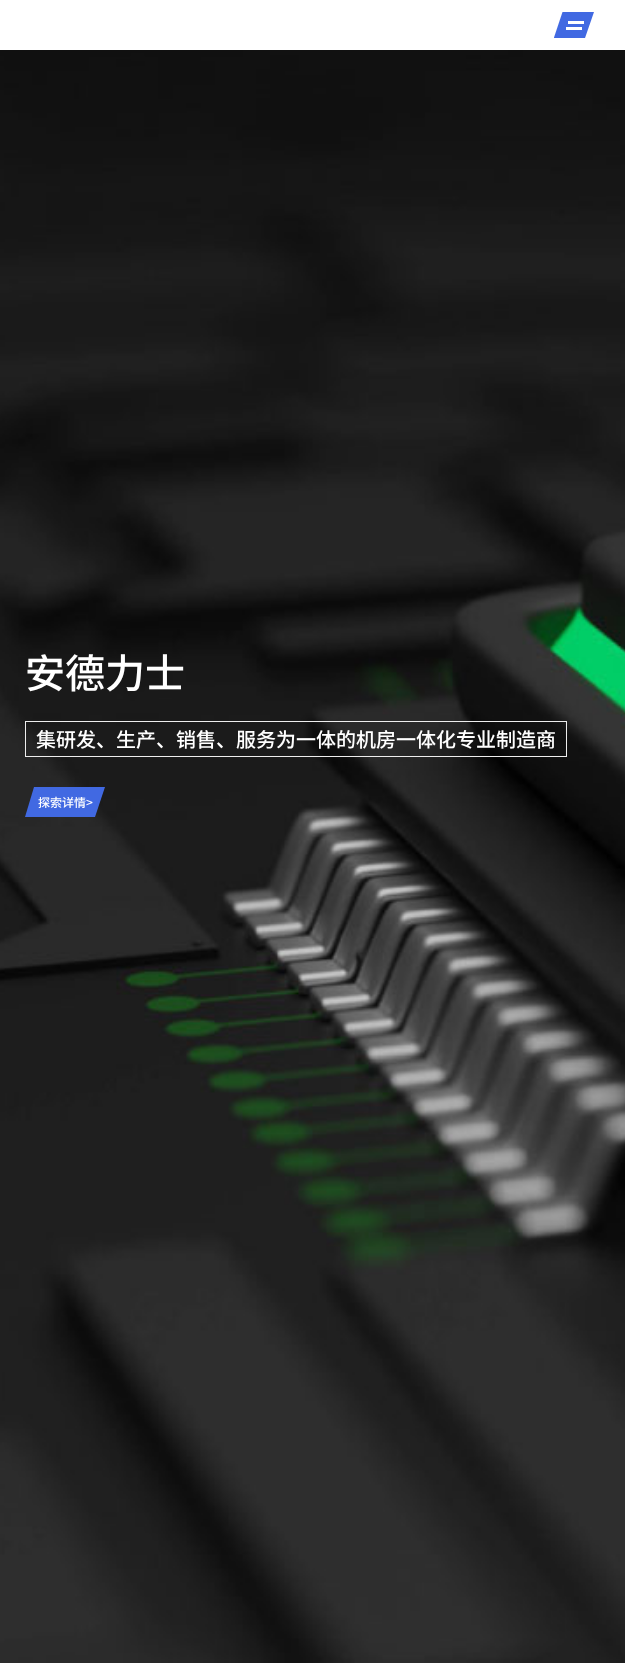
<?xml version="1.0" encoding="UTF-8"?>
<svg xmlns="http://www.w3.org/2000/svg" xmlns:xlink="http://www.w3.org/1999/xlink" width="625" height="1663">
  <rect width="100%" height="100%" fill="#ffffff" />
  <path d="M 562.5 12 l -8.5 25.5 v 0.5 h 31 l 9 -26 z" fill="#4169e2" />
  <rect x="568" y="21" width="16" height="3" fill="#ffffff" />
  <rect x="566" y="27" width="16" height="3" fill="#ffffff" />
  <image x="0" y="50" width="625" height="1613" xlink:href="image1.png" />
  <rect x="25.5" y="721.5" width="541" height="35" fill="none" stroke="#eeeeee" />
  <path d="M 105 787 l -10 30 h -70 l 9 -30 z" fill="#4169e2" />
  <text x="25" y="688" style="font-family: Noto Sans SC; font-size: 40px; font-weight: 500; fill: #ffffff">安德力士</text>
  <text x="36" y="747" style="font-family: Noto Sans SC; font-size: 20px; font-weight: 500; fill: #ffffff">集研发、生产、销售、服务为一体的机房一体化专业制造商</text>
  <text x="38" y="807" style="font-family: Noto Sans SC; font-size: 12px; font-weight: 500; fill: #ffffff">探索详情&gt;</text>
</svg>
